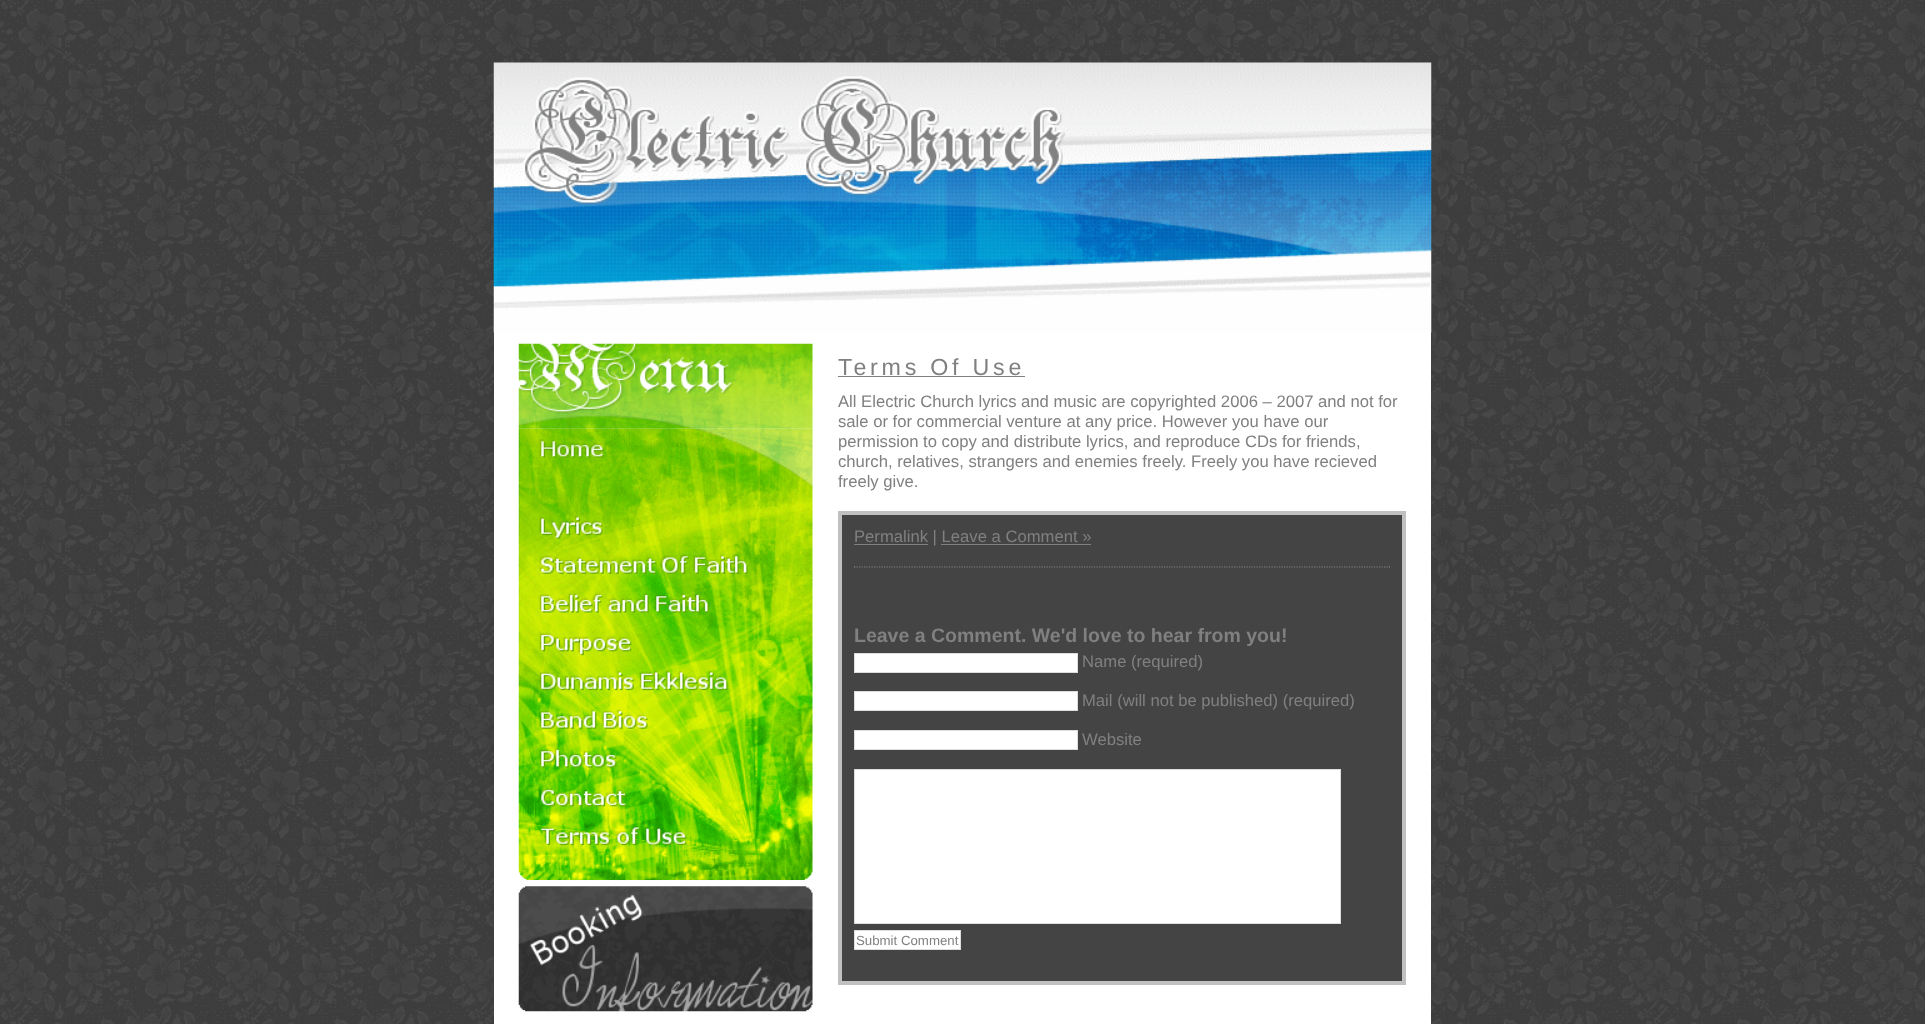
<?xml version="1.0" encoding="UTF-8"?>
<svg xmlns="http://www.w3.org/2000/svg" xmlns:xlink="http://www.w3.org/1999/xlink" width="1925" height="1024">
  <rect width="100%" height="100%" fill="#ffffff" />
  <image x="0" y="0" width="1925" height="1024" xlink:href="image1.png" />
  <rect x="494" y="332" width="937" height="692" fill="#ffffff" />
  <image x="493" y="62" width="939" height="271" xlink:href="image2.png" />
  <image x="518" y="343" width="295" height="86" xlink:href="image3.png" />
  <image x="518" y="428" width="295" height="452" xlink:href="image4.png" />
  <image x="518" y="886" width="295" height="126" xlink:href="image5.png" />
  <rect x="838" y="376" width="187" height="1" fill="#808080" />
  <rect x="840" y="513" width="564" height="470" fill="#444444" stroke="#c0c0c0" stroke-width="4" />
  <rect x="854" y="544" width="74" height="1" fill="#808080" />
  <rect x="941" y="544" width="150" height="1" fill="#808080" />
  <rect x="1389" y="566" width="1" height="1" fill="#808080" />
  <path d="M 854 567 h 536" fill="none" stroke="#808080" stroke-width="1.2" stroke-dasharray="1.25 1.25" />
  <rect x="854" y="566" width="1" height="1" fill="#808080" />
  <rect x="854.5" y="653.5" width="223" height="19" fill="#ffffff" stroke="#dddddd" />
  <rect x="854.5" y="691.5" width="223" height="19" fill="#ffffff" stroke="#dddddd" />
  <rect x="854.5" y="730.5" width="223" height="19" fill="#ffffff" stroke="#dddddd" />
  <rect x="854.5" y="769.5" width="486" height="154" fill="#ffffff" stroke="#dddddd" />
  <rect x="854.5" y="930.5" width="106" height="19" fill="#ffffff" stroke="#dddddd" />
  <text x="838" y="375" style="font-family: Liberation Sans; font-size: 23.25px; letter-spacing: 3.75px; fill: #808080">Terms Of Use</text>
  <text x="838" y="407" style="font-family: Liberation Sans; font-size: 16.65px; fill: #808080">All Electric Church lyrics and music are copyrighted 2006 – 2007 and not for</text>
  <text x="838" y="427" style="font-family: Liberation Sans; font-size: 16.65px; fill: #808080">sale or for commercial venture at any price. However you have our</text>
  <text x="838" y="447" style="font-family: Liberation Sans; font-size: 16.65px; fill: #808080">permission to copy and distribute lyrics, and reproduce CDs for friends,</text>
  <text x="838" y="467" style="font-family: Liberation Sans; font-size: 16.65px; fill: #808080">church, relatives, strangers and enemies freely. Freely you have recieved</text>
  <text x="838" y="487" style="font-family: Liberation Sans; font-size: 16.65px; fill: #808080">freely give.</text>
  <text x="854" y="542" style="font-family: Liberation Sans; font-size: 16.65px; fill: #808080">Permalink | Leave a Comment »</text>
  <text x="854" y="642" style="font-family: Liberation Sans; font-size: 19.5px; font-weight: bold; fill: #808080">Leave a Comment. We'd love to hear from you!</text>
  <text x="1082" y="667" style="font-family: Liberation Sans; font-size: 16.65px; fill: #808080">Name (required)</text>
  <text x="1082" y="706" style="font-family: Liberation Sans; font-size: 16.65px; fill: #808080">Mail (will not be published) (required)</text>
  <text x="1082" y="745" style="font-family: Liberation Sans; font-size: 16.65px; fill: #808080">Website</text>
  <text x="856" y="945" style="font-family: Liberation Sans; font-size: 13.25px; fill: #808080">Submit Comment</text>
</svg>
